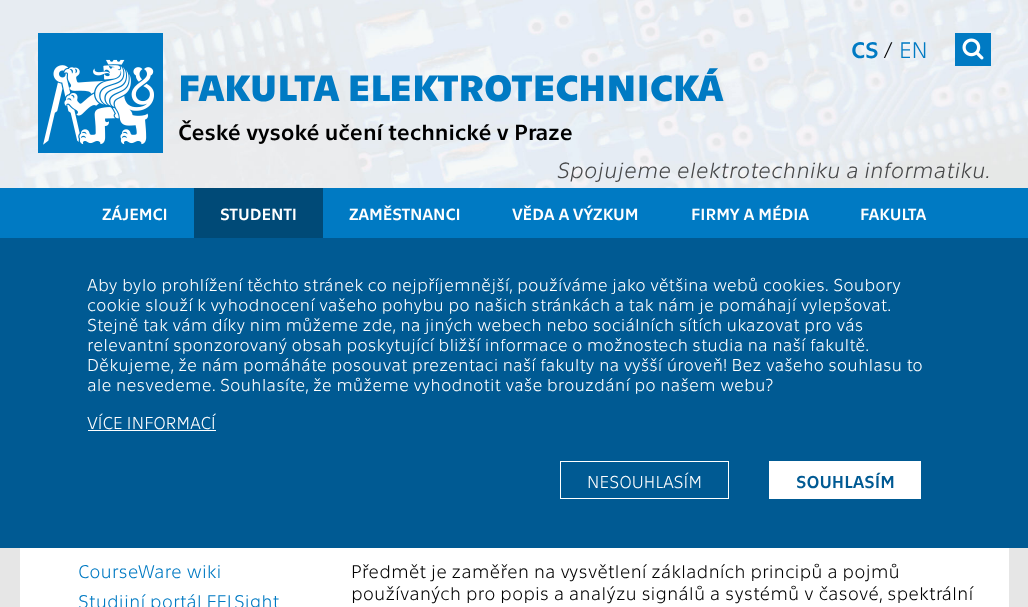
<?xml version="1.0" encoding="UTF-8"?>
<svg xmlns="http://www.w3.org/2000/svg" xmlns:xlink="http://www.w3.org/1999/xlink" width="1028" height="607">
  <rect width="100%" height="100%" fill="#e6e6e6" />
  <image x="0" y="0" width="1028" height="188" xlink:href="image1.png" />
  <rect x="38" y="33" width="125" height="120" fill="#007ac3" />
  <image x="43" y="59" width="111" height="86" xlink:href="image2.png" />
  <rect x="955" y="33" width="36" height="33" fill="#007ac3" />
  <image x="962" y="38" width="22" height="22" xlink:href="image3.png" />
  <rect y="188" width="1028" height="50" fill="#007ac3" />
  <rect x="194" y="188" width="129" height="50" fill="#004a77" />
  <rect y="238" width="1028" height="310" fill="#005a93" />
  <rect x="88" y="430" width="128" height="1" fill="#ffffff" />
  <rect x="560.5" y="461.5" width="168" height="37" fill="none" stroke="#ffffff" />
  <rect x="769" y="461" width="152" height="38" fill="#ffffff" />
  <rect x="20" y="548" width="989" height="59" fill="#ffffff" />
  <text x="178" y="101" style="font-family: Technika; font-size: 37.5px; font-weight: bold; fill: #007ac3">FAKULTA ELEKTROTECHNICKÁ</text>
  <text x="851" y="58" style="font-family: Technika; font-size: 23px; fill: #007ac3">CS</text>
  <text x="883" y="58" style="font-family: Technika; font-size: 23px; font-weight: 300; fill: #000000">/</text>
  <text x="899" y="58" style="font-family: Technika; font-size: 23px; font-weight: 300; fill: #007ac3">EN</text>
  <text x="557" y="178" style="font-family: Technika; font-size: 22.5px; font-weight: 300; font-style: italic; fill: #464748">Spojujeme elektrotechniku a informatiku.</text>
  <text x="178" y="140" style="font-family: Technika; font-size: 22.5px; fill: #000000">České vysoké učení technické v Praze</text>
  <text x="102" y="220" style="font-family: Technika; font-size: 16.5px; fill: #ffffff">ZÁJEMCI</text>
  <text x="220" y="220" style="font-family: Technika; font-size: 16.5px; fill: #ffffff">STUDENTI</text>
  <text x="349" y="220" style="font-family: Technika; font-size: 16.5px; fill: #ffffff">ZAMĚSTNANCI</text>
  <text x="512" y="220" style="font-family: Technika; font-size: 16.5px; fill: #ffffff">VĚDA A VÝZKUM</text>
  <text x="691" y="220" style="font-family: Technika; font-size: 16.5px; fill: #ffffff">FIRMY A MÉDIA</text>
  <text x="860" y="220" style="font-family: Technika; font-size: 16.5px; fill: #ffffff">FAKULTA</text>
  <text x="87" y="291" style="font-family: Technika; font-size: 17.5px; font-weight: 300; fill: #ffffff">Aby bylo prohlížení těchto stránek co nejpříjemnější, používáme jako většina webů cookies. Soubory</text>
  <text x="87" y="311" style="font-family: Technika; font-size: 17.5px; font-weight: 300; fill: #ffffff">cookie slouží k vyhodnocení vašeho pohybu po našich stránkách a tak nám je pomáhají vylepšovat.</text>
  <text x="87" y="331" style="font-family: Technika; font-size: 17.5px; font-weight: 300; fill: #ffffff">Stejně tak vám díky nim můžeme zde, na jiných webech nebo sociálních sítích ukazovat pro vás</text>
  <text x="87" y="351" style="font-family: Technika; font-size: 17.5px; font-weight: 300; fill: #ffffff">relevantní sponzorovaný obsah poskytující bližší informace o možnostech studia na naší fakultě.</text>
  <text x="87" y="371" style="font-family: Technika; font-size: 17.5px; font-weight: 300; fill: #ffffff">Děkujeme, že nám pomáháte posouvat prezentaci naší fakulty na vyšší úroveň! Bez vašeho souhlasu to</text>
  <text x="87" y="391" style="font-family: Technika; font-size: 17.5px; font-weight: 300; fill: #ffffff">ale nesvedeme. Souhlasíte, že můžeme vyhodnotit vaše brouzdání po našem webu?</text>
  <text x="87" y="429" style="font-family: Technika; font-size: 17.5px; font-weight: 300; fill: #ffffff">VÍCE INFORMACÍ</text>
  <text x="587" y="488" style="font-family: Technika; font-size: 17.5px; font-weight: 300; fill: #ffffff">NESOUHLASÍM</text>
  <text x="796" y="488" style="font-family: Technika; font-size: 17.5px; fill: #005a93">SOUHLASÍM</text>
  <text x="78" y="578" style="font-family: Technika; font-size: 18.8px; font-weight: 300; fill: #007ac3">CourseWare wiki</text>
  <text x="78" y="608" style="font-family: Technika; font-size: 18.8px; font-weight: 300; fill: #007ac3">Studijní portál FELSight</text>
  <text x="351" y="578" style="font-family: Technika; font-size: 18.8px; font-weight: 300; fill: #000000">Předmět je zaměřen na vysvětlení základních principů a pojmů</text>
  <text x="351" y="600" style="font-family: Technika; font-size: 18.8px; font-weight: 300; fill: #000000">používaných pro popis a analýzu signálů a systémů v časové, spektrální</text>
</svg>
